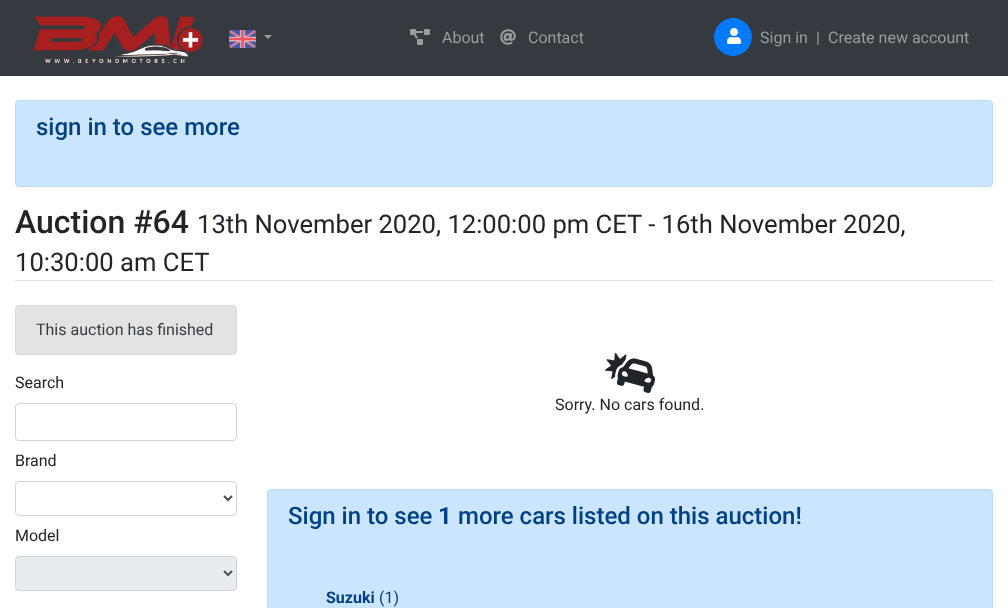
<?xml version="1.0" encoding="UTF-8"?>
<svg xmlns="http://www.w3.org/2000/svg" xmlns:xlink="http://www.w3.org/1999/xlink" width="1008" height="608">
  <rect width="100%" height="100%" fill="#ffffff" />
  <rect width="1008" height="76" fill="#343a40" />
  <image x="33" y="16" width="170" height="47" xlink:href="image1.png" />
  <image x="229" y="30" width="27" height="18" xlink:href="image2.png" />
  <path d="M 264 35 h 8 l -4 4 z" fill="#9a9da0" />
  <image x="410" y="29" width="20" height="16" xlink:href="image3.png" />
  <image x="500" y="29" width="16" height="16" xlink:href="image4.png" />
  <circle cx="733" cy="37" r="18.5" fill="#007bff" stroke="#007bff" />
  <image x="727" y="28" width="14" height="16" xlink:href="image5.png" />
  <rect x="15.5" y="100.5" width="977" height="86" rx="3.5" fill="#cce5ff" stroke="#b8daff" />
  <rect x="15" y="280" width="978" height="1" fill="#dee2e6" />
  <rect x="15.5" y="305.5" width="221" height="49" rx="3.5" fill="#e2e3e5" stroke="#d6d8db" />
  <rect x="15.5" y="403.5" width="221" height="37" rx="3.5" fill="none" stroke="#ced4da" />
  <rect x="15.5" y="481.5" width="221" height="34" rx="3.5" fill="none" stroke="#ced4da" />
  <path d="M 224 496 l 4 4 l 4 -4" fill="none" stroke="#495057" stroke-width="2" />
  <rect x="15.5" y="556.5" width="221" height="34" rx="3.5" fill="#e9ecef" stroke="#ced4da" />
  <path d="M 224 571 l 4 4 l 4 -4" fill="none" stroke="#495057" stroke-width="2" />
  <image x="605" y="353" width="51" height="40" xlink:href="image6.png" />
  <rect x="267.5" y="489.5" width="725" height="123" rx="3.5" fill="#cce5ff" stroke="#b8daff" />
  <text x="442" y="43" style="font-family: Roboto; font-size: 16px; fill: #9a9da0">About</text>
  <text x="528" y="43" style="font-family: Roboto; font-size: 16px; fill: #9a9da0">Contact</text>
  <text x="760" y="43" style="font-family: Roboto; font-size: 16px; fill: #9a9da0">Sign in</text>
  <text x="816" y="43" style="font-family: Roboto; font-size: 16px; fill: #9a9da0">|</text>
  <text x="828" y="43" style="font-family: Roboto; font-size: 16px; fill: #9a9da0">Create new account</text>
  <text x="36" y="135" style="font-family: Roboto; font-size: 24px; font-weight: 500; fill: #004085">sign in to see more</text>
  <text x="15" y="233" style="font-family: Roboto; font-size: 32px; font-weight: 500; fill: #212529">Auction #64</text>
  <text x="197" y="233" style="font-family: Roboto; font-size: 25.6px; fill: #212529">13th November 2020, 12:00:00 pm CET - 16th November 2020,</text>
  <text x="15" y="271" style="font-family: Roboto; font-size: 25.6px; fill: #212529">10:30:00 am CET</text>
  <text x="36" y="335" style="font-family: Roboto; font-size: 16px; fill: #383d41">This auction has finished</text>
  <text x="15" y="388" style="font-family: Roboto; font-size: 16px; fill: #212529">Search</text>
  <text x="15" y="466" style="font-family: Roboto; font-size: 16px; fill: #212529">Brand</text>
  <text x="15" y="541" style="font-family: Roboto; font-size: 16px; fill: #212529">Model</text>
  <text x="555" y="410" style="font-family: Roboto; font-size: 16px; fill: #212529">Sorry. No cars found.</text>
  <text x="288" y="524" style="font-family: Roboto; font-size: 24px; font-weight: 500; fill: #004085">Sign in to see</text>
  <text x="438" y="524" style="font-family: Roboto; font-size: 24px; font-weight: bold; fill: #004085">1</text>
  <text x="458" y="524" style="font-family: Roboto; font-size: 24px; font-weight: 500; fill: #004085">more cars listed on this auction!</text>
  <text x="326" y="603" style="font-family: Roboto; font-size: 16px; font-weight: bold; fill: #004085">Suzuki</text>
  <text x="379" y="603" style="font-family: Roboto; font-size: 16px; fill: #004085">(1)</text>
</svg>
